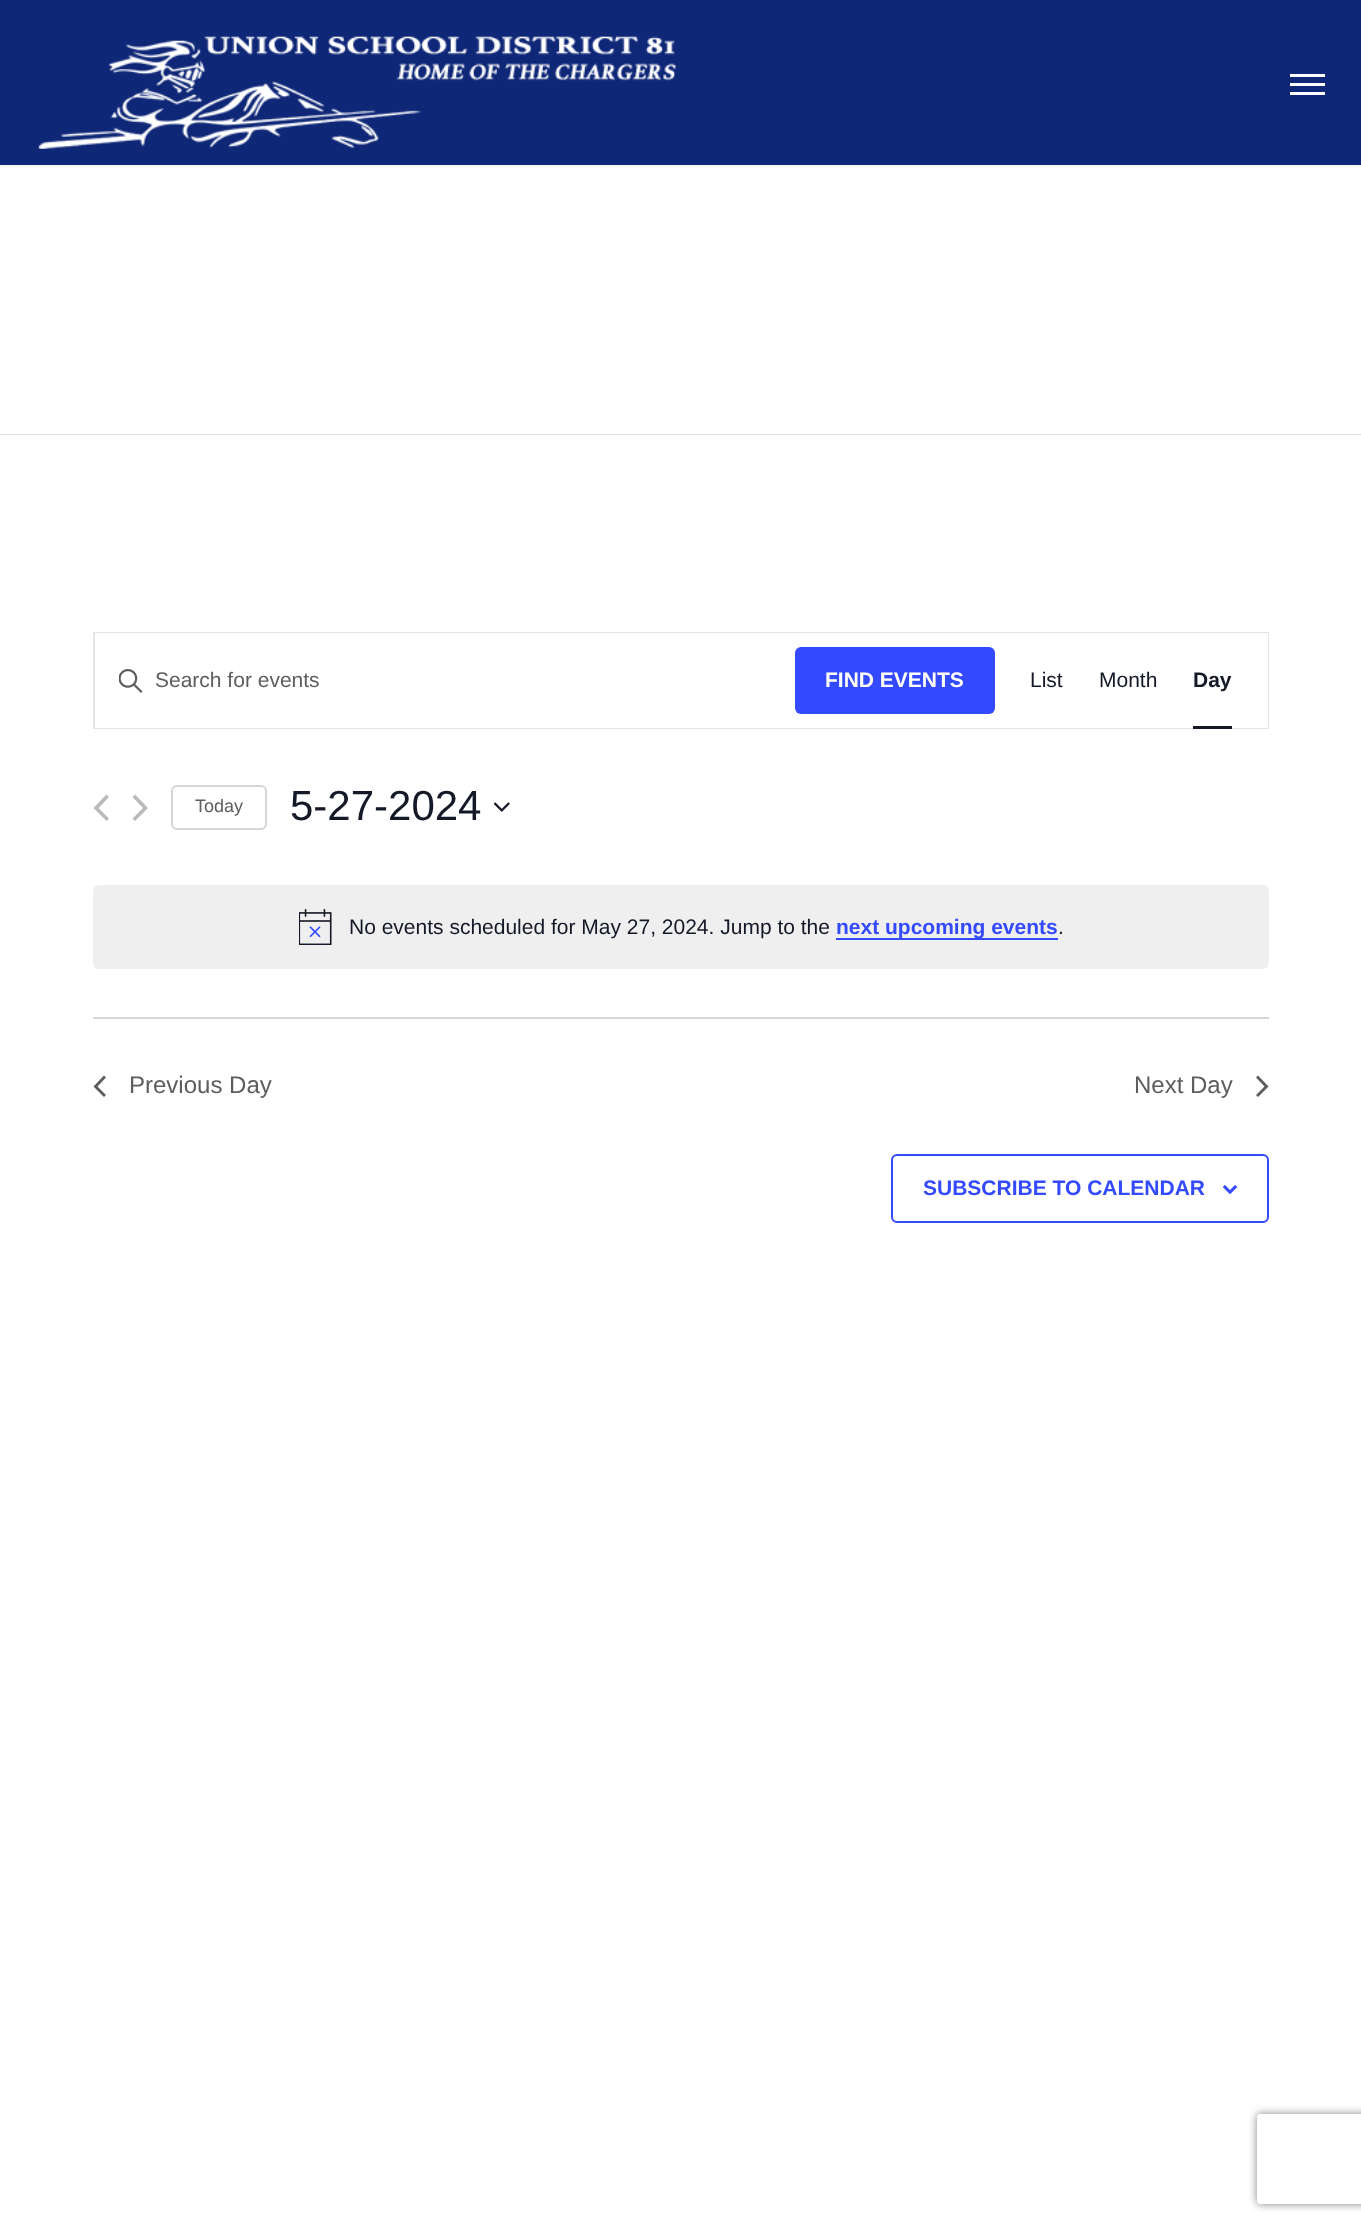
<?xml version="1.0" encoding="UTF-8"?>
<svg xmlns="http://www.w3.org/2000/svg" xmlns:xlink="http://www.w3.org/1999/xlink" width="1361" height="2224">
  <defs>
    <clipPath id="clip1"><path d="M 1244 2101 h 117 v 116 h -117 z m 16 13 h 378 c 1.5 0 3 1.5 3 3 v 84 c 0 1.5 -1.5 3 -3 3 h -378 c -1.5 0 -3 -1.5 -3 -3 v -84 c 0 -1.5 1.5 -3 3 -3 z" clip-rule="evenodd" /></clipPath>
  </defs>
  <rect width="100%" height="100%" fill="#ffffff" />
  <rect width="1361" height="165" fill="#0f2777" />
  <rect y="165" width="1361" height="2" fill="#f5f5f5" />
  <image x="38" y="36" width="638" height="113" xlink:href="image1.png" />
  <rect x="1290" y="74" width="35" height="3" fill="#ffffff" />
  <rect x="1290" y="83" width="35" height="3" fill="#ffffff" />
  <rect x="1290" y="92" width="35" height="3" fill="#ffffff" />
  <rect y="434" width="1361" height="1" fill="#e1e1e1" />
  <rect x="94" y="633" width="1174" height="95" fill="none" stroke="#e4e4e4" stroke-width="2" />
  <rect x="95" y="633" width="1173" height="95" fill="#ffffff" />
  <image x="119" y="669" width="24" height="24" xlink:href="image2.png" />
  <rect x="795" y="647" width="200" height="67" rx="6" fill="#334aff" />
  <rect x="1193" y="726" width="39" height="3" fill="#141827" />
  <path d="M 109 818.5 l -2.5 2.5 l -13 -13 l 13 -13.5 l 2.5 2.5 l -10.5 11 z m 23.5 -21.5 l 2.5 -2.5 l 13 13.5 l -13 13 l -2.5 -2.5 l 10.5 -10.5 z" fill="#bababa" />
  <rect x="172" y="786" width="94" height="43" rx="5" fill="none" stroke="#d5d5d5" stroke-width="2" />
  <image x="494" y="802" width="16" height="10" xlink:href="image3.png" />
  <rect x="93" y="885" width="1176" height="84" rx="6" fill="#efeff0" />
  <image x="299" y="909" width="33" height="36" xlink:href="image4.png" />
  <rect x="836" y="938" width="222" height="2" fill="#334aff" />
  <rect x="93" y="1017" width="1176" height="2" fill="#d5d5d5" />
  <path d="M 106 1095 l -2 2 l -10.5 -10.5 l 10.5 -11 l 2 2 l -8.5 9 z" fill="#5d5d5d" />
  <path d="M 1256 1077.5 l 2 -2 l 10.5 11 l -10.5 10.5 l -2 -2 l 8.5 -8.5 z" fill="#5d5d5d" />
  <rect x="892" y="1155" width="376" height="67" rx="5" fill="none" stroke="#334aff" stroke-width="2" />
  <image x="1223" y="1185" width="15" height="9" xlink:href="image5.png" />
  <g clip-path="url(#clip1)">
    <rect x="1257" y="2114" width="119" height="90" rx="3" fill="#808080" filter="blur(4px)" />
  </g>
  <text x="155" y="687" style="font-family: Liberation Sans; font-size: 21px; fill: #5d5d5d">Search for events</text>
  <text x="825" y="687" style="font-family: Liberation Sans; font-size: 21px; font-weight: bold; fill: #ffffff">FIND EVENTS</text>
  <text x="1030" y="687" style="font-family: Liberation Sans; font-size: 21px; fill: #141827">List</text>
  <text x="1099" y="687" style="font-family: Liberation Sans; font-size: 21px; fill: #141827">Month</text>
  <text x="1193" y="687" style="font-family: Liberation Sans; font-size: 21px; font-weight: bold; fill: #141827">Day</text>
  <text x="195" y="812" style="font-family: Liberation Sans; font-size: 18px; fill: #5d5d5d">Today</text>
  <text x="290" y="820" style="font-family: Liberation Sans; font-size: 42px; fill: #141827">5-27-2024</text>
  <text x="349" y="934" style="font-family: Liberation Sans; font-size: 21px; fill: #141827">No events scheduled for May 27, 2024. Jump to the</text>
  <text x="836" y="934" style="font-family: Liberation Sans; font-size: 21px; font-weight: bold; fill: #334aff">next upcoming events</text>
  <text x="1058" y="934" style="font-family: Liberation Sans; font-size: 21px; fill: #141827">.</text>
  <text x="129" y="1093" style="font-family: Liberation Sans; font-size: 24px; fill: #5d5d5d">Previous Day</text>
  <text x="1134" y="1093" style="font-family: Liberation Sans; font-size: 24px; fill: #5d5d5d">Next Day</text>
  <text x="923" y="1195" style="font-family: Liberation Sans; font-size: 21px; font-weight: bold; fill: #334aff">SUBSCRIBE TO CALENDAR</text>
</svg>
